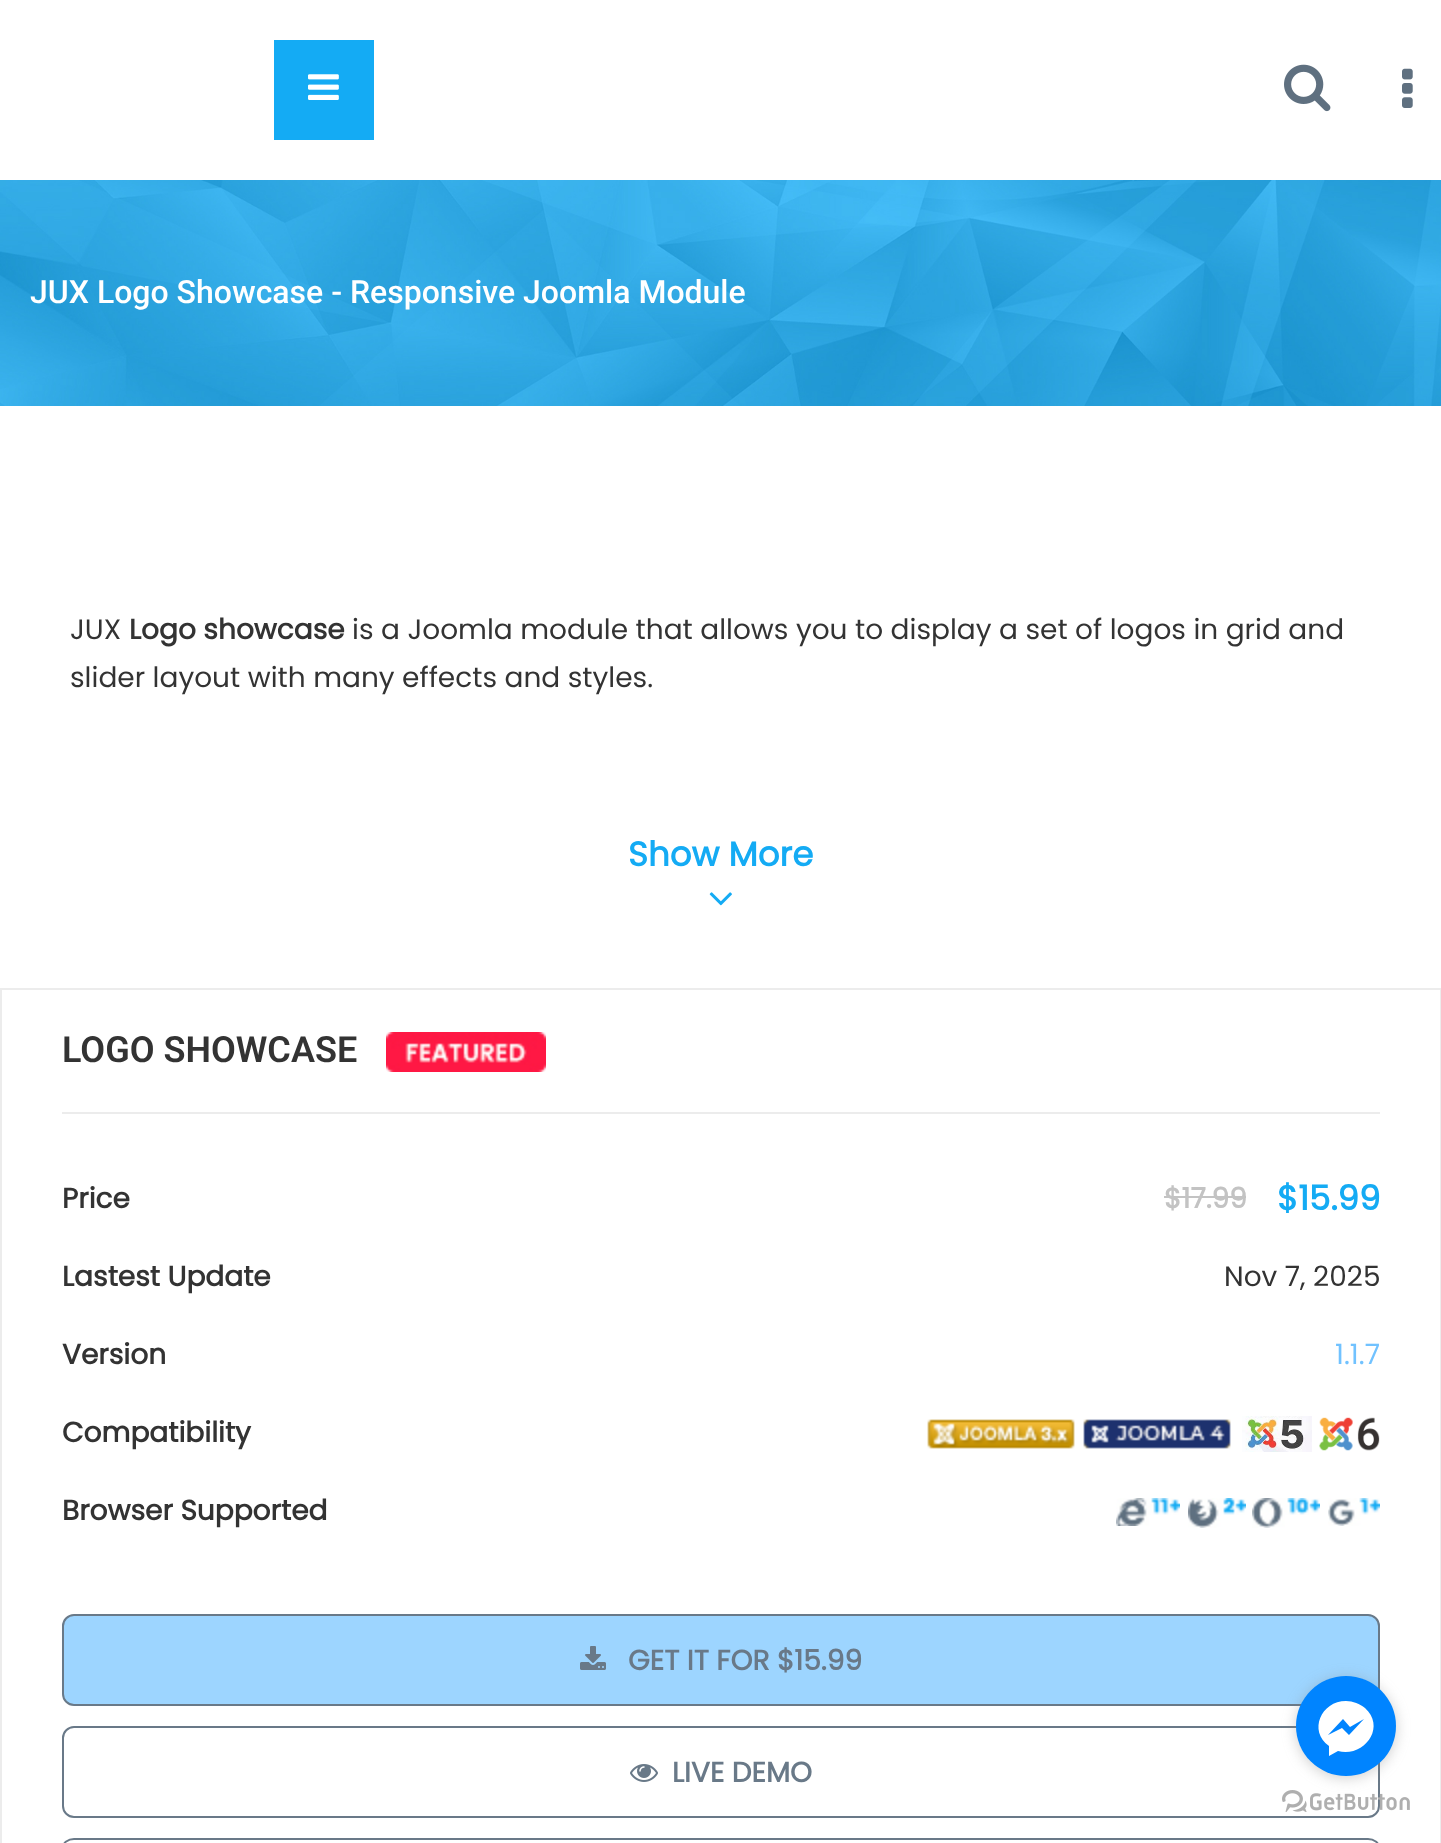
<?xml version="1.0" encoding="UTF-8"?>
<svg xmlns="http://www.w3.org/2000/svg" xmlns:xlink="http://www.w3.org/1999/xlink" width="1441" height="1843">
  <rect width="100%" height="100%" fill="#ffffff" />
  <rect x="274" y="40" width="100" height="100" fill="#14abf4" />
  <image x="308" y="74" width="31" height="26" xlink:href="image1.png" />
  <image x="1284" y="64" width="47" height="48" xlink:href="image2.png" />
  <image x="1402" y="68" width="11" height="40" xlink:href="image3.png" />
  <image x="0" y="180" width="1441" height="226" xlink:href="image4.png" />
  <image x="709" y="892" width="23" height="14" xlink:href="image5.png" />
  <rect x="1" y="989" width="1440" height="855" fill="none" stroke="#ececec" stroke-width="2" />
  <rect x="62" y="1112" width="1318" height="2" fill="#ececec" />
  <image x="386" y="1032" width="160" height="40" xlink:href="image6.png" />
  <rect x="1164" y="1196" width="82" height="2" fill="#c3c3c3" />
  <image x="927" y="1419" width="148" height="30" xlink:href="image7.png" />
  <image x="1083" y="1419" width="148" height="30" xlink:href="image8.png" />
  <image x="1242" y="1416" width="70" height="36" xlink:href="image9.png" />
  <image x="1319" y="1417" width="61" height="34" xlink:href="image10.png" />
  <image x="1116" y="1498" width="64" height="28" xlink:href="image11.png" />
  <image x="1188" y="1498" width="58" height="30" xlink:href="image12.png" />
  <image x="1252" y="1498" width="68" height="30" xlink:href="image13.png" />
  <image x="1328" y="1498" width="52" height="28" xlink:href="image14.png" />
  <rect x="63" y="1615" width="1316" height="90" rx="11" fill="#9dd5ff" stroke="#697988" stroke-width="2" />
  <image x="580" y="1646" width="26" height="24" xlink:href="image15.png" />
  <rect x="63" y="1727" width="1316" height="90" rx="11" fill="none" stroke="#697988" stroke-width="2" />
  <image x="630" y="1764" width="28" height="18" xlink:href="image16.png" />
  <rect x="63" y="1839" width="1316" height="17" rx="11" fill="none" stroke="#697988" stroke-width="2" />
  <image x="1282" y="1790" width="128" height="22" xlink:href="image17.png" />
  <rect x="1296" y="1678" width="100" height="100" rx="50" fill="#888888" fill-opacity="0.4" filter="blur(7px)" />
  <circle cx="1346" cy="1726" r="50" fill="#0084ff" />
  <path d="M 1346 1701 c -25 0 -38 30 -17 45 v 10 l 9 -5 c 25 7 49 -23 27 -43 c -5 -4 -12 -7 -19 -7 z m 3 34 l -7 -7 l -14 7 l 15 -16 l 7 8 l 14 -8 z" fill="#ffffff" />
  <text x="30" y="303" style="font-family: Roboto; font-size: 32px; font-weight: 500; fill: #ffffff">JUX Logo Showcase - Responsive Joomla Module</text>
  <text x="70" y="639" style="font-family: Poppins; font-size: 28px; fill: #333333">JUX</text>
  <text x="129" y="639" style="font-family: Poppins; font-size: 28px; font-weight: bold; fill: #333333">Logo showcase</text>
  <text x="352" y="639" style="font-family: Poppins; font-size: 28px; fill: #333333">is a Joomla module that allows you to display a set of logos in grid and</text>
  <text x="70" y="687" style="font-family: Poppins; font-size: 28px; fill: #333333">slider layout with many effects and styles.</text>
  <text x="628" y="866" style="font-family: Poppins; font-size: 34px; font-weight: bold; fill: #14abf4">Show More</text>
  <text x="62" y="1062" style="font-family: Roboto; font-size: 36px; font-weight: 600; fill: #333333">LOGO SHOWCASE</text>
  <text x="62" y="1208" style="font-family: Poppins; font-size: 28px; font-weight: bold; fill: #333333">Price</text>
  <text x="1164" y="1208" style="font-family: Poppins; font-size: 28px; font-weight: bold; fill: #c3c3c3">$17.99</text>
  <text x="1277" y="1210" style="font-family: Poppins; font-size: 34px; font-weight: bold; fill: #14abf4">$15.99</text>
  <text x="62" y="1286" style="font-family: Poppins; font-size: 28px; font-weight: bold; fill: #333333">Lastest Update</text>
  <text x="1224" y="1286" style="font-family: Poppins; font-size: 28px; fill: #333333">Nov 7, 2025</text>
  <text x="62" y="1364" style="font-family: Poppins; font-size: 28px; font-weight: bold; fill: #333333">Version</text>
  <text x="1335" y="1364" style="font-family: Poppins; font-size: 28px; fill: #71c2ff">1.1.7</text>
  <text x="62" y="1442" style="font-family: Poppins; font-size: 28px; font-weight: bold; fill: #333333">Compatibility</text>
  <text x="62" y="1520" style="font-family: Poppins; font-size: 28px; font-weight: bold; fill: #333333">Browser Supported</text>
  <text x="628" y="1670" style="font-family: Poppins; font-size: 28px; font-weight: bold; fill: #697988">GET IT FOR $15.99</text>
  <text x="672" y="1782" style="font-family: Poppins; font-size: 28px; font-weight: bold; fill: #697988">LIVE DEMO</text>
</svg>
